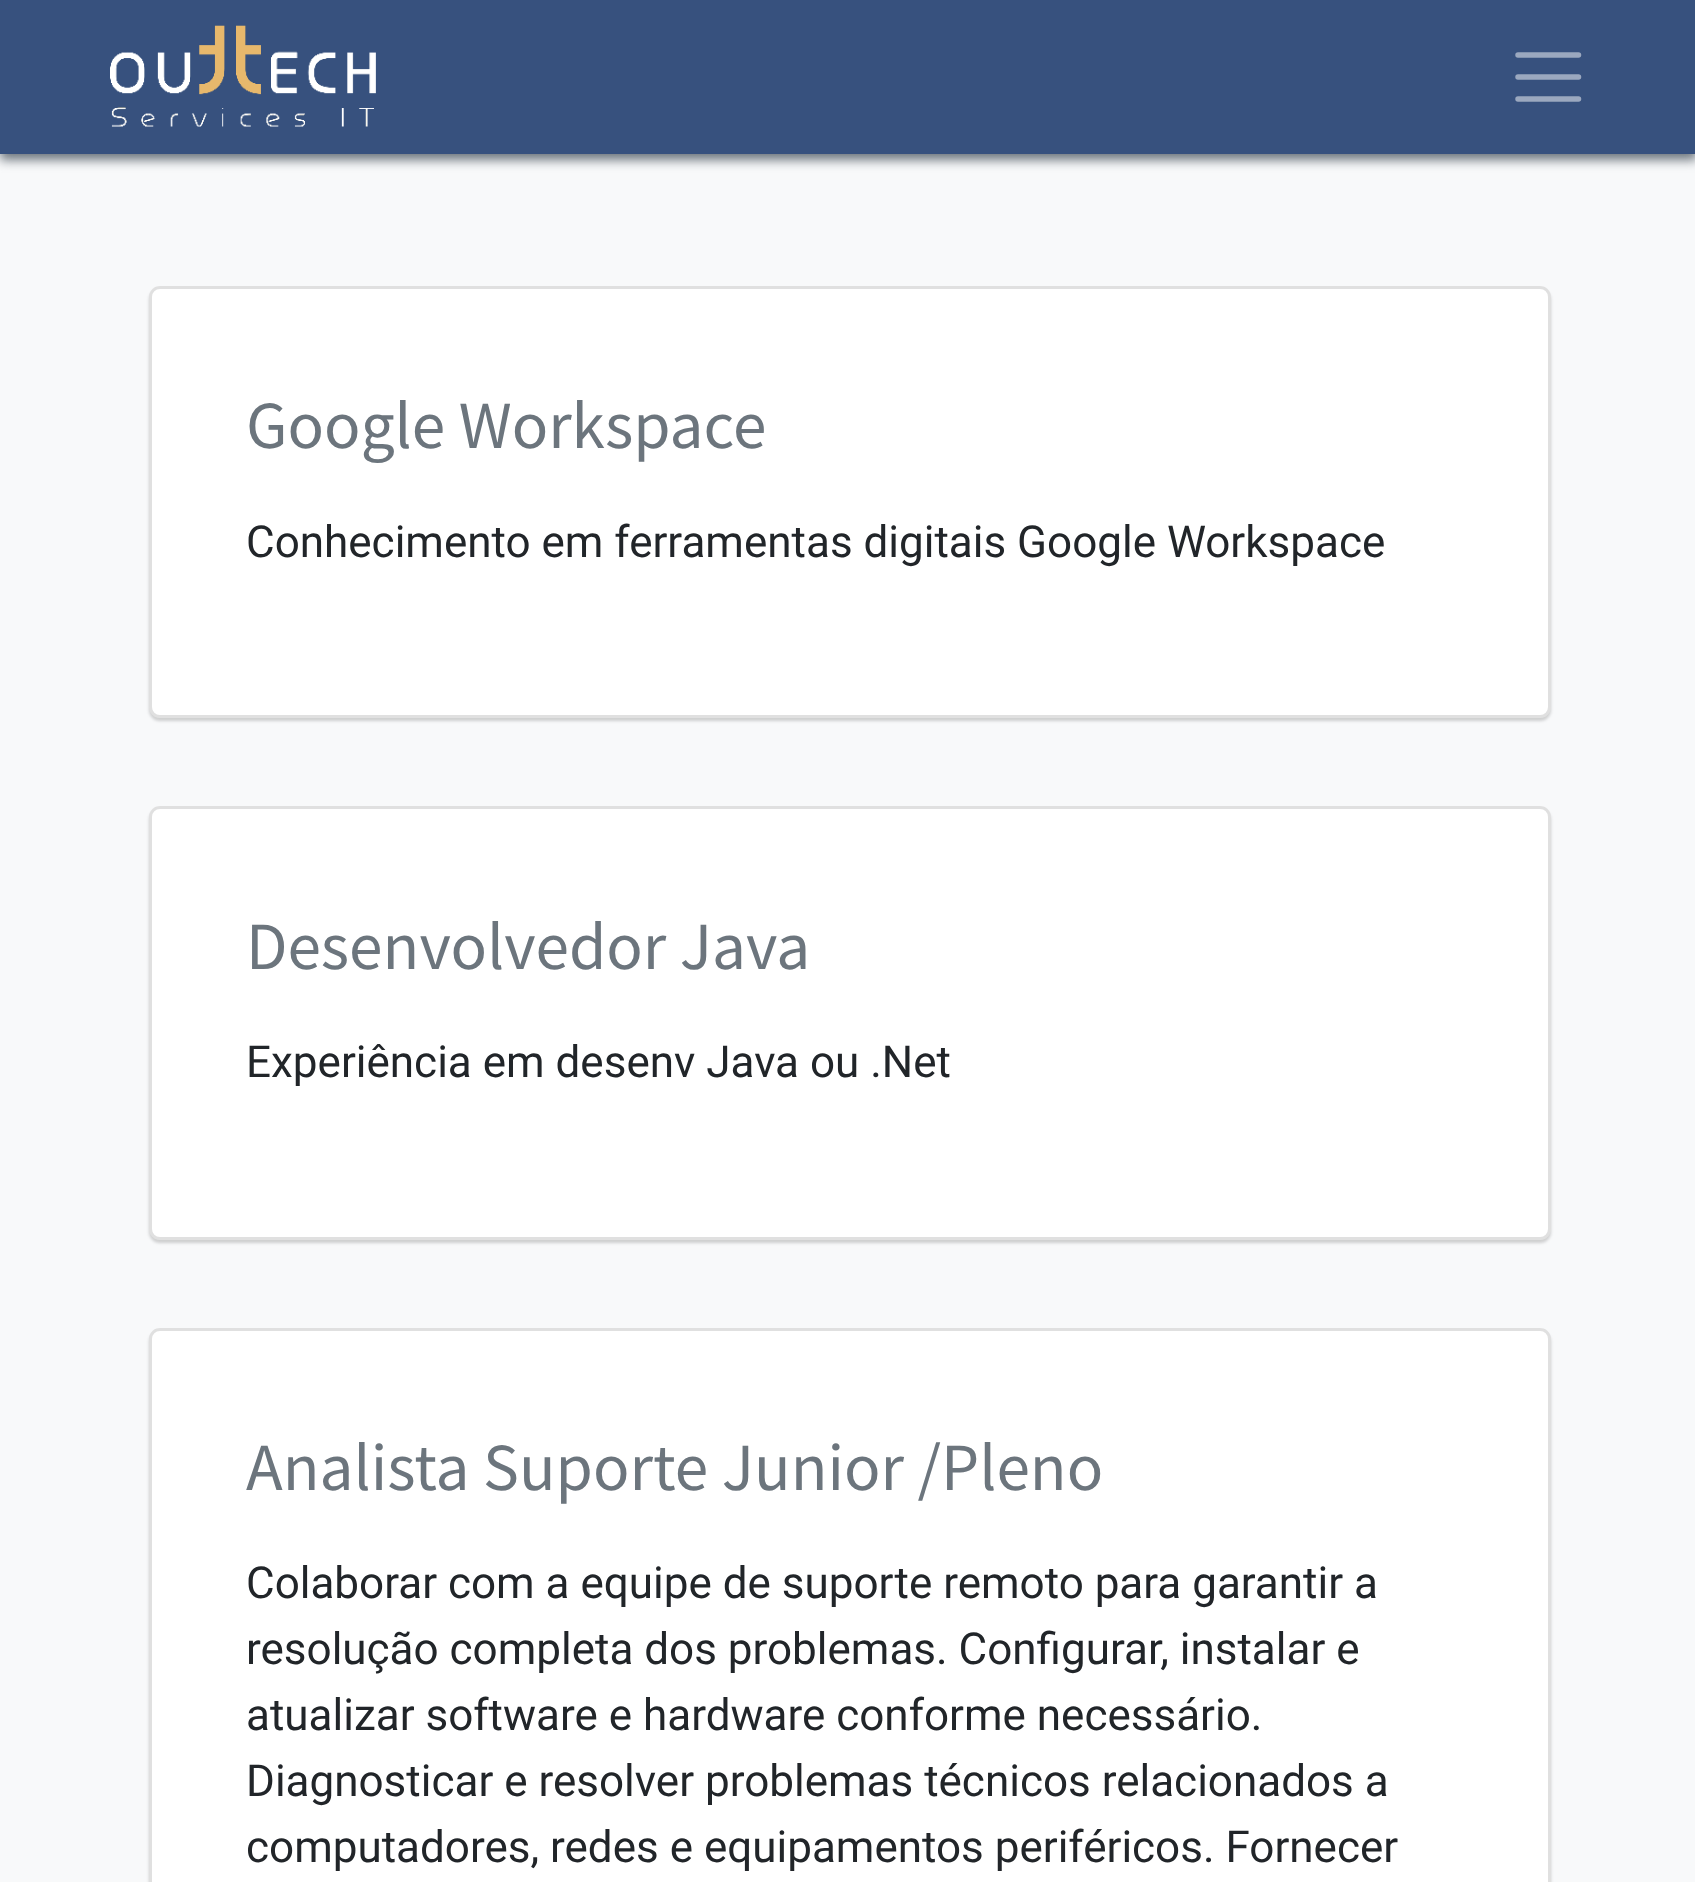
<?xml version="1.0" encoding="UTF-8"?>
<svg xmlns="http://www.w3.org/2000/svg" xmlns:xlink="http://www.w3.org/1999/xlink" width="1695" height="1882">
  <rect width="100%" height="100%" fill="#f8f9fa" />
  <rect y="6" width="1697" height="154" fill="#6c757d" filter="blur(5.5px)" />
  <rect width="1695" height="154" fill="#37517e" />
  <image x="110" y="25" width="266" height="102" xlink:href="image1.png" />
  <path d="M 1518 55 h 60.5 m -60.5 22 h 60.5 m -60.5 22 h 60.5" fill="none" stroke="#9ba8bf" stroke-width="5.5" stroke-linecap="round" />
  <rect x="149" y="289" width="1402" height="432" rx="11" fill="#000000" fill-opacity="0.17" filter="blur(1.5px)" />
  <rect x="149" y="286" width="1402" height="432" rx="11" fill="#ffffff" />
  <rect x="150.5" y="287.5" width="1399" height="429" rx="9.5" fill="none" stroke="#000000" stroke-opacity="0.12" stroke-width="3" />
  <rect x="149" y="809" width="1402" height="434" rx="11" fill="#000000" fill-opacity="0.17" filter="blur(1.5px)" />
  <rect x="149" y="806" width="1402" height="434" rx="11" fill="#ffffff" />
  <rect x="150.5" y="807.5" width="1399" height="431" rx="9.5" fill="none" stroke="#000000" stroke-opacity="0.12" stroke-width="3" />
  <rect x="149" y="1331" width="1402" height="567" rx="11" fill="#000000" fill-opacity="0.17" filter="blur(1.5px)" />
  <path d="M 160 1328 h 1380 c 6 0 11 5 11 11 v 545 h -1402 v -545 c 0 -6 5 -11 11 -11 z" fill="#ffffff" />
  <rect x="150.5" y="1329.5" width="1399" height="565" rx="9.5" fill="none" stroke="#000000" stroke-opacity="0.12" stroke-width="3" />
  <text x="246" y="448" style="font-family: Source Sans Pro; font-size: 67.4px; fill: #6c757d">Google Workspace</text>
  <text x="246" y="557" style="font-family: Roboto; font-size: 44px; fill: #212529">Conhecimento em ferramentas digitais Google Workspace</text>
  <text x="246" y="969" style="font-family: Source Sans Pro; font-size: 67.4px; fill: #6c757d">Desenvolvedor Java</text>
  <text x="246" y="1077" style="font-family: Roboto; font-size: 44px; fill: #212529">Experiência em desenv Java ou .Net</text>
  <text x="246" y="1490" style="font-family: Source Sans Pro; font-size: 67.4px; fill: #6c757d">Analista Suporte Junior /Pleno</text>
  <text x="246" y="1598" style="font-family: Roboto; font-size: 44px; fill: #212529">Colaborar com a equipe de suporte remoto para garantir a</text>
  <text x="246" y="1664" style="font-family: Roboto; font-size: 44px; fill: #212529">resolução completa dos problemas. Configurar, instalar e</text>
  <text x="246" y="1730" style="font-family: Roboto; font-size: 44px; fill: #212529">atualizar software e hardware conforme necessário.</text>
  <text x="246" y="1796" style="font-family: Roboto; font-size: 44px; fill: #212529">Diagnosticar e resolver problemas técnicos relacionados a</text>
  <text x="246" y="1862" style="font-family: Roboto; font-size: 44px; fill: #212529">computadores, redes e equipamentos periféricos. Fornecer</text>
</svg>
